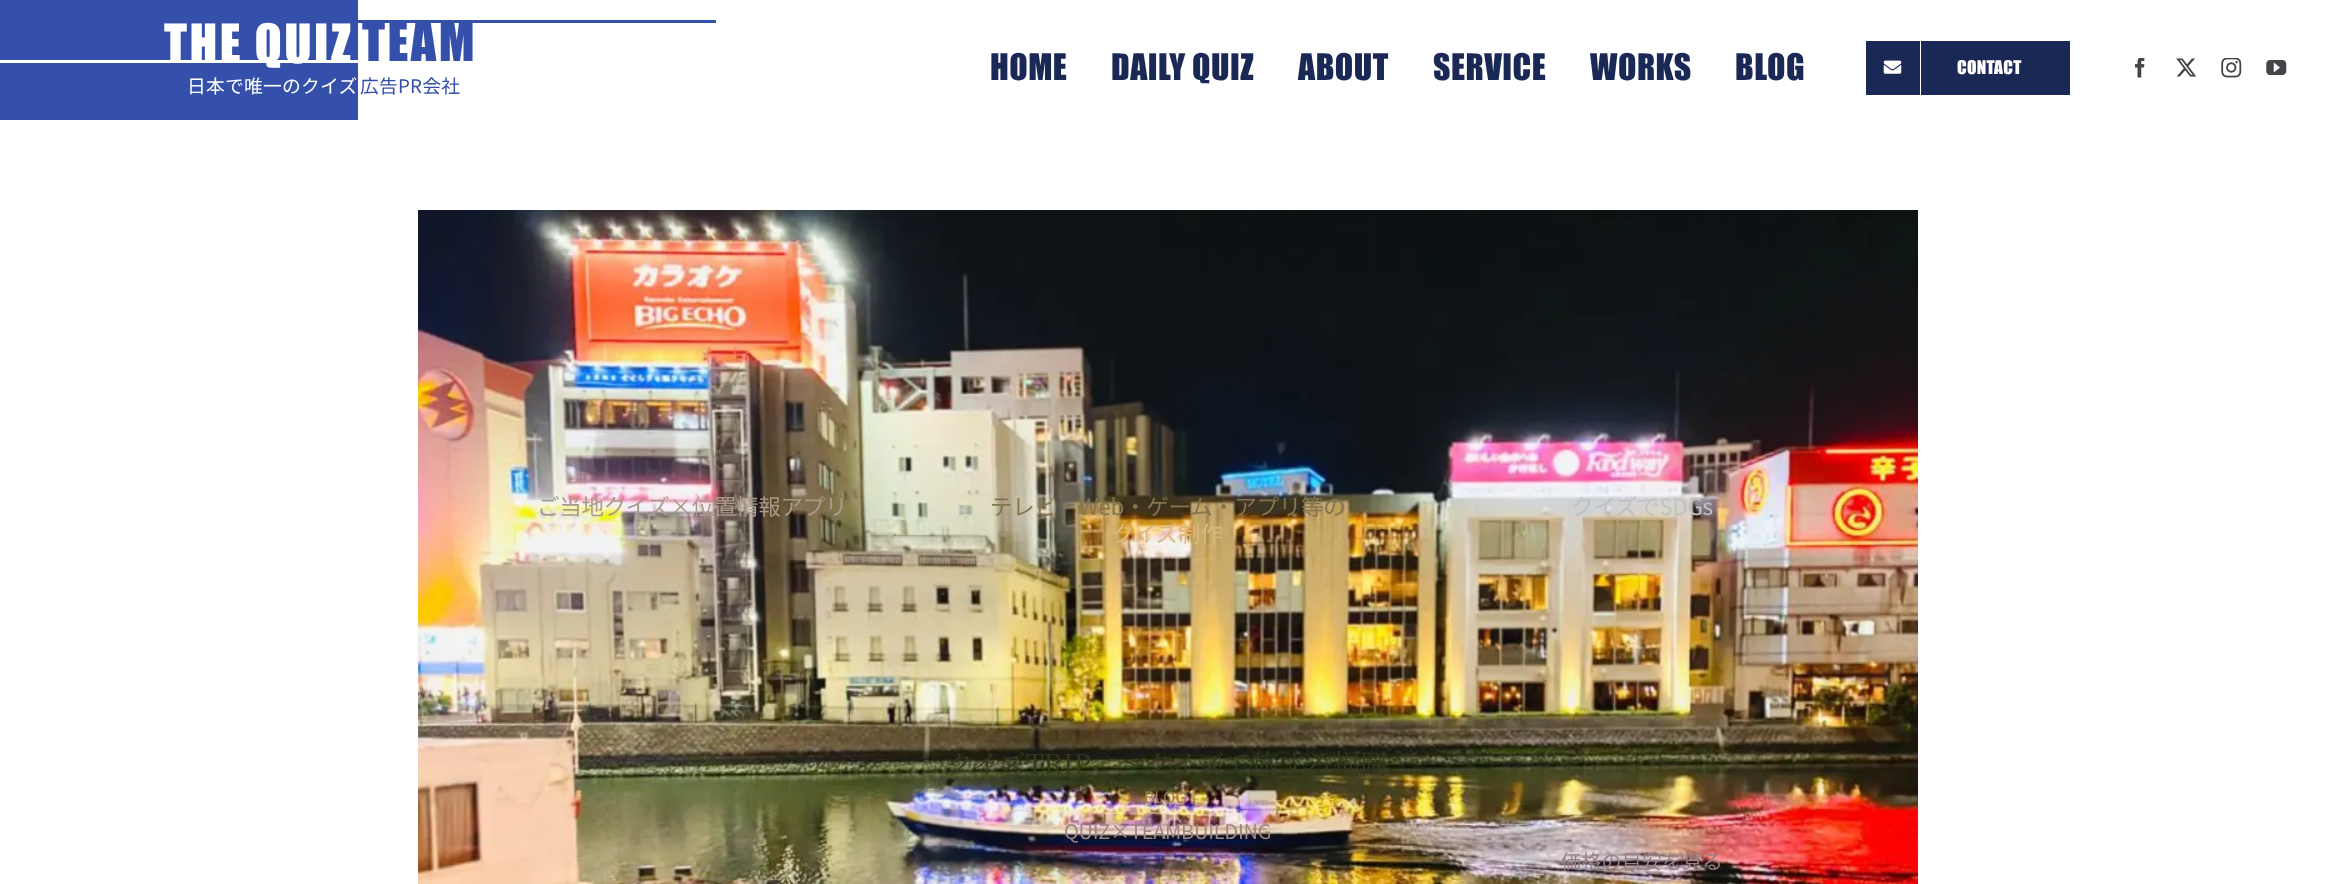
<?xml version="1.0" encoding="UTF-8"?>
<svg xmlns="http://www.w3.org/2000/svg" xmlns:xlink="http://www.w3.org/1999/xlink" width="2333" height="884">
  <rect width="100%" height="100%" fill="#ffffff" />
  <rect width="358" height="120" fill="#3450aa" />
  <rect y="60" width="358" height="3" fill="#ffffff" />
  <rect x="358" y="20" width="358" height="3" fill="#3450aa" />
  <rect x="1866" y="41" width="204" height="54" fill="#1a2855" />
  <rect x="1920" y="41" width="1" height="54" fill="#ffffff" />
  <image x="1883" y="60" width="19" height="14" xlink:href="image1.png" />
  <image x="2135" y="58" width="10" height="20" xlink:href="image2.png" />
  <image x="2176" y="58" width="21" height="19" xlink:href="image3.png" />
  <image x="2221" y="58" width="21" height="20" xlink:href="image4.png" />
  <image x="2266" y="60" width="21" height="15" xlink:href="image5.png" />
  <image x="418" y="210" width="1500" height="674" xlink:href="image6.png" />
  <text x="164" y="63" style="font-family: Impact; font-size: 50px; letter-spacing: 2.5px; fill: #ffffff">THE QUIZ</text>
  <text x="187" y="93" style="font-family: Noto Sans JP; font-size: 18.75px; letter-spacing: 0.25px; fill: #ffffff">日本で唯一のクイズ</text>
  <text x="362" y="61" style="font-family: Impact; font-size: 50px; letter-spacing: 2.5px; fill: #3450aa">TEAM</text>
  <text x="360" y="93" style="font-family: Noto Sans JP; font-size: 18.75px; letter-spacing: 0.25px; fill: #3450aa">広告PR会社</text>
  <text x="1433" y="80" style="font-family: Impact; font-size: 33.75px; letter-spacing: 0.5px; fill: #1a2855">SERVICE</text>
  <text x="537" y="515" style="font-family: Noto Sans JP; font-size: 22.5px; letter-spacing: -0.3px; fill: #ab9a8a">ご当地クイズ×位置情報アプリ</text>
  <text x="990" y="515" style="font-family: Noto Sans JP; font-size: 22.5px; letter-spacing: -0.3px; fill: #84744f">テレビ・Web・ゲーム・アプリ等の</text>
  <text x="1112" y="542" style="font-family: Noto Sans JP; font-size: 22.5px; letter-spacing: -0.3px; fill: #dbb97e">クイズ制作</text>
  <text x="1571" y="515" style="font-family: Noto Sans JP; font-size: 22.5px; letter-spacing: -0.3px; fill: #c3c0bf">クイズでSDGs</text>
  <text x="1064" y="839" style="font-family: Noto Sans JP; font-size: 20px; letter-spacing: -0.25px; fill: #9b8786">QUIZ×TEAMBUILDING</text>
  <text x="1561" y="869" style="font-family: Noto Sans JP; font-size: 20px; letter-spacing: 0.25px; fill: #968084">価格の目安を見る</text>
  <text x="990" y="80" style="font-family: Impact; font-size: 33.75px; letter-spacing: 0.5px; fill: #1a2855">HOME</text>
  <text x="1111" y="80" style="font-family: Impact; font-size: 33.75px; letter-spacing: 0.5px; fill: #1a2855">DAILY QUIZ</text>
  <text x="1298" y="80" style="font-family: Impact; font-size: 33.75px; letter-spacing: 0.5px; fill: #1a2855">ABOUT</text>
  <text x="1590" y="80" style="font-family: Impact; font-size: 33.75px; letter-spacing: 0.5px; fill: #1a2855">WORKS</text>
  <text x="1735" y="80" style="font-family: Impact; font-size: 33.75px; letter-spacing: 0.5px; fill: #1a2855">BLOG</text>
  <text x="1957" y="74" style="font-family: Impact; font-size: 17.5px; letter-spacing: 0.25px; fill: #ffffff">CONTACT</text>
  <text x="946" y="774" style="font-family: Noto Serif JP; font-size: 27.5px; font-weight: 200; letter-spacing: -0.4px; fill: #34381f">クイズTRIP　～クイズで旅する福岡</text>
  <text x="1144" y="803" style="font-family: Inter; font-size: 16px; fill: #9c7b5d">BLOG</text>
</svg>
